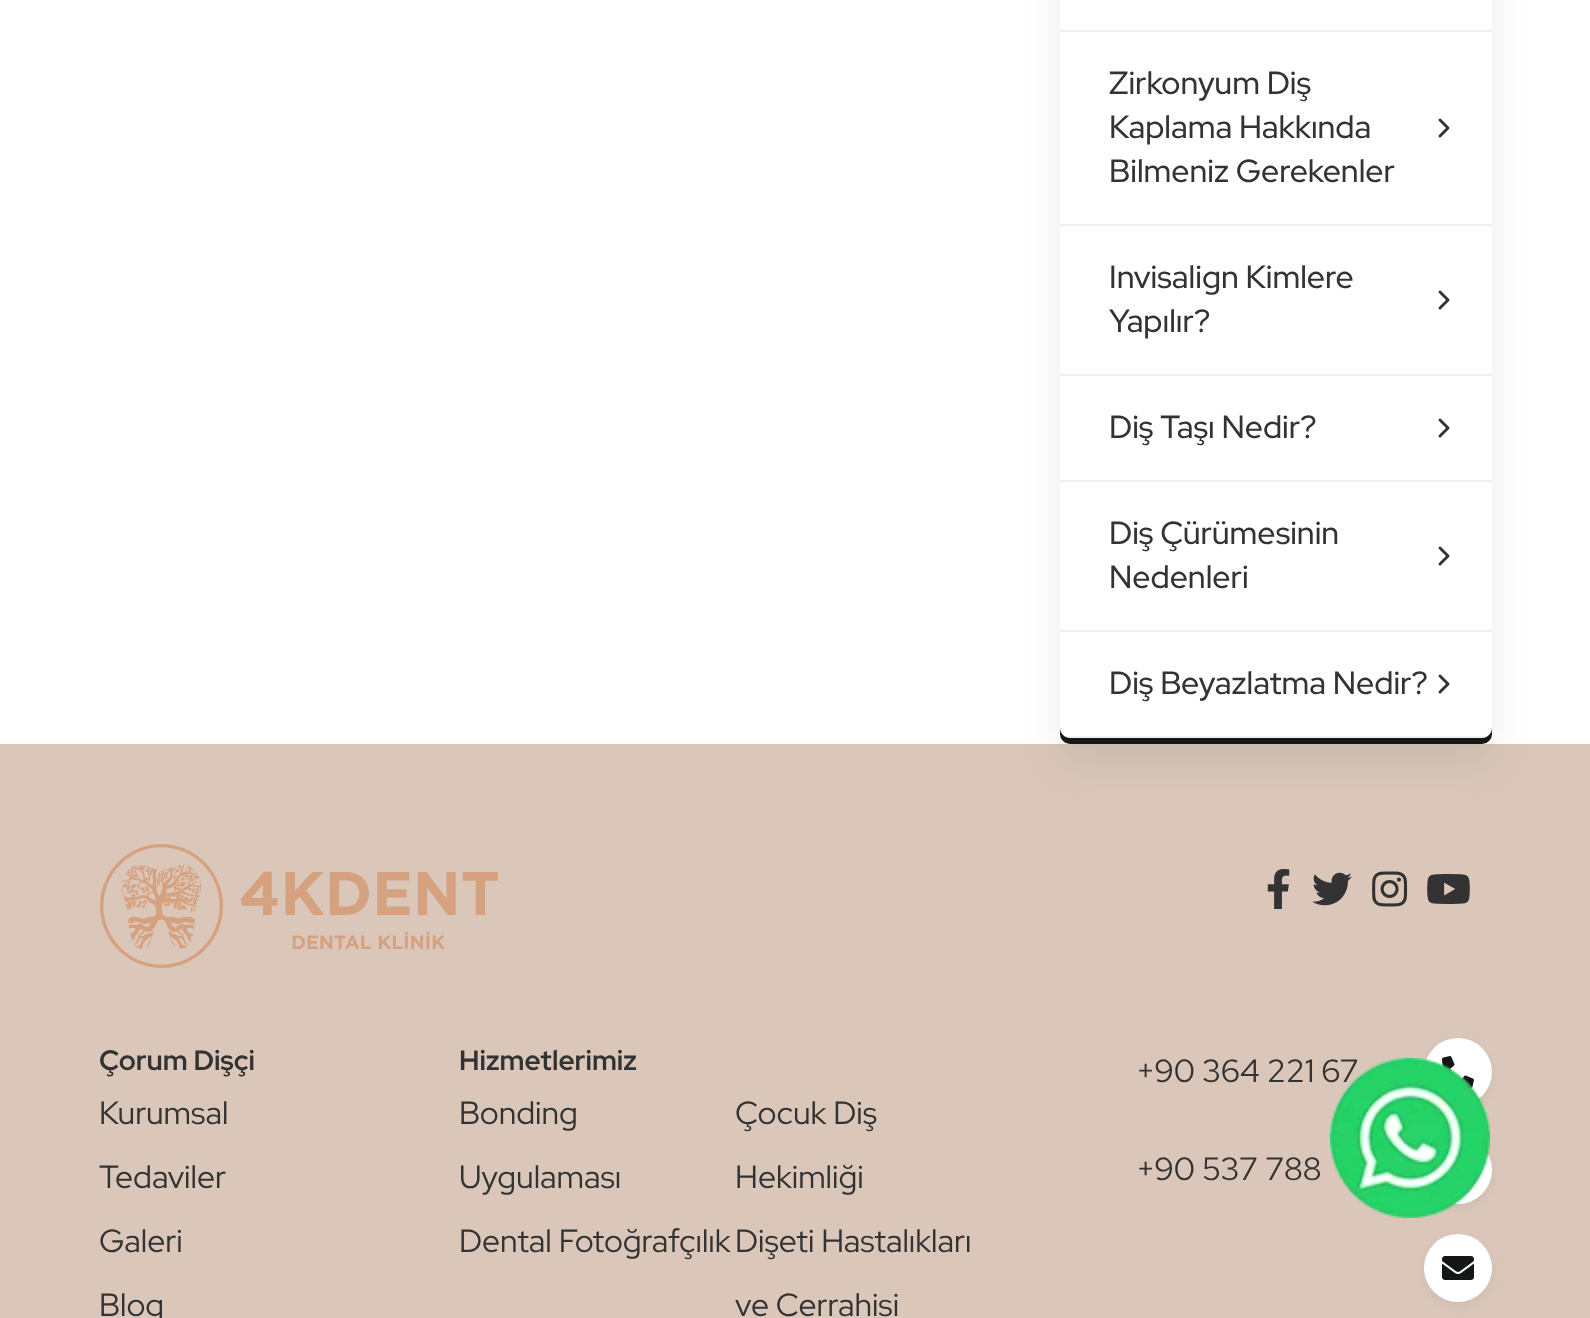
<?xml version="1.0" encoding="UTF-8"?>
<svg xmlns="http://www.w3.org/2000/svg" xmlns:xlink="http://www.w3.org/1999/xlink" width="1590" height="1318">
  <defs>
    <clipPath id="clip1"><rect x="1060" y="-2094" width="432" height="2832" rx="10" /></clipPath>
  </defs>
  <rect width="100%" height="100%" fill="#ffffff" />
  <rect y="744" width="1590" height="574" fill="#dac7ba" />
  <rect x="1060" y="-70" width="432" height="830" rx="10" fill="#000000" fill-opacity="0.07" filter="blur(20px)" />
  <rect x="1060" y="-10" width="432" height="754" rx="10" fill="#151616" />
  <rect x="1060" y="-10" width="432" height="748" rx="10" fill="#ffffff" />
  <rect x="1060" y="30" width="432" height="2" fill="#f0f0f0" />
  <path d="M 1440 120 l 8 8 m -8 8 l 8 -8" fill="none" stroke="#333333" stroke-width="2.9" stroke-linecap="round" />
  <rect x="1060" y="224" width="432" height="2" fill="#f0f0f0" />
  <path d="M 1440 292 l 8 8 m -8 8 l 8 -8" fill="none" stroke="#333333" stroke-width="2.9" stroke-linecap="round" />
  <rect x="1060" y="374" width="432" height="2" fill="#f0f0f0" />
  <path d="M 1440 420 l 8 8 m -8 8 l 8 -8" fill="none" stroke="#333333" stroke-width="2.9" stroke-linecap="round" />
  <rect x="1060" y="480" width="432" height="2" fill="#f0f0f0" />
  <path d="M 1440 548 l 8 8 m -8 8 l 8 -8" fill="none" stroke="#333333" stroke-width="2.9" stroke-linecap="round" />
  <rect x="1060" y="630" width="432" height="2" fill="#f0f0f0" />
  <path d="M 1440 676 l 8 8 m -8 8 l 8 -8" fill="none" stroke="#333333" stroke-width="2.9" stroke-linecap="round" />
  <g clip-path="url(#clip1)">
    <rect x="1060" y="736" width="432" height="2" fill="#f0f0f0" />
  </g>
  <image x="100" y="844" width="398" height="124" xlink:href="image1.png" />
  <image x="1267" y="869" width="23" height="40" xlink:href="image2.png" />
  <image x="1312" y="872" width="40" height="34" xlink:href="image3.png" />
  <image x="1372" y="871" width="36" height="36" xlink:href="image4.png" />
  <image x="1427" y="874" width="43" height="30" xlink:href="image5.png" />
  <rect x="1424" y="1042" width="68" height="68" rx="34" fill="#000000" fill-opacity="0.05" filter="blur(5px)" />
  <circle cx="1458" cy="1072" r="34" fill="#ffffff" />
  <image x="1442" y="1056" width="32" height="32" xlink:href="image6.png" />
  <rect x="1424" y="1140" width="68" height="68" rx="34" fill="#000000" fill-opacity="0.05" filter="blur(5px)" />
  <circle cx="1458" cy="1170" r="34" fill="#ffffff" />
  <rect x="1424" y="1238" width="68" height="68" rx="34" fill="#000000" fill-opacity="0.05" filter="blur(5px)" />
  <circle cx="1458" cy="1268" r="34" fill="#ffffff" />
  <image x="1442" y="1256" width="32" height="24" xlink:href="image7.png" />
  <text x="1109" y="94" style="font-family: Red Hat Display; font-size: 32px; font-weight: 500; fill: #333333">Zirkonyum Diş</text>
  <text x="1109" y="138" style="font-family: Red Hat Display; font-size: 32px; font-weight: 500; fill: #333333">Kaplama Hakkında</text>
  <text x="1109" y="182" style="font-family: Red Hat Display; font-size: 32px; font-weight: 500; fill: #333333">Bilmeniz Gerekenler</text>
  <text x="1109" y="288" style="font-family: Red Hat Display; font-size: 32px; font-weight: 500; fill: #333333">Invisalign Kimlere</text>
  <text x="1109" y="332" style="font-family: Red Hat Display; font-size: 32px; font-weight: 500; fill: #333333">Yapılır?</text>
  <text x="1109" y="438" style="font-family: Red Hat Display; font-size: 32px; font-weight: 500; fill: #333333">Diş Taşı Nedir?</text>
  <text x="1109" y="544" style="font-family: Red Hat Display; font-size: 32px; font-weight: 500; fill: #333333">Diş Çürümesinin</text>
  <text x="1109" y="588" style="font-family: Red Hat Display; font-size: 32px; font-weight: 500; fill: #333333">Nedenleri</text>
  <text x="1109" y="694" style="font-family: Red Hat Display; font-size: 32px; font-weight: 500; fill: #333333">Diş Beyazlatma Nedir?</text>
  <text x="99" y="1070" style="font-family: Red Hat Display; font-size: 28px; font-weight: bold; fill: #333333">Çorum Dişçi</text>
  <text x="99" y="1124" style="font-family: Red Hat Display; font-size: 32px; fill: #333333">Kurumsal</text>
  <text x="99" y="1188" style="font-family: Red Hat Display; font-size: 32px; fill: #333333">Tedaviler</text>
  <text x="99" y="1252" style="font-family: Red Hat Display; font-size: 32px; fill: #333333">Galeri</text>
  <text x="99" y="1316" style="font-family: Red Hat Display; font-size: 32px; fill: #333333">Blog</text>
  <text x="459" y="1070" style="font-family: Red Hat Display; font-size: 28px; font-weight: bold; fill: #333333">Hizmetlerimiz</text>
  <text x="459" y="1124" style="font-family: Red Hat Display; font-size: 32px; fill: #333333">Bonding</text>
  <text x="459" y="1188" style="font-family: Red Hat Display; font-size: 32px; fill: #333333">Uygulaması</text>
  <text x="735" y="1124" style="font-family: Red Hat Display; font-size: 32px; fill: #333333">Çocuk Diş</text>
  <text x="735" y="1188" style="font-family: Red Hat Display; font-size: 32px; fill: #333333">Hekimliği</text>
  <text x="459" y="1252" style="font-family: Red Hat Display; font-size: 32px; fill: #333333">Dental Fotoğrafçılık</text>
  <text x="735" y="1252" style="font-family: Red Hat Display; font-size: 32px; fill: #333333">Dişeti Hastalıkları</text>
  <text x="735" y="1316" style="font-family: Red Hat Display; font-size: 32px; fill: #333333">ve Cerrahisi</text>
  <text x="1136" y="1082" style="font-family: Red Hat Display; font-size: 32px; fill: #333333">+90 364 221 67</text>
  <text x="1136" y="1180" style="font-family: Red Hat Display; font-size: 32px; fill: #333333">+90 537 788</text>
  <image x="1330" y="1058" width="160" height="160" xlink:href="image8.png" />
</svg>
